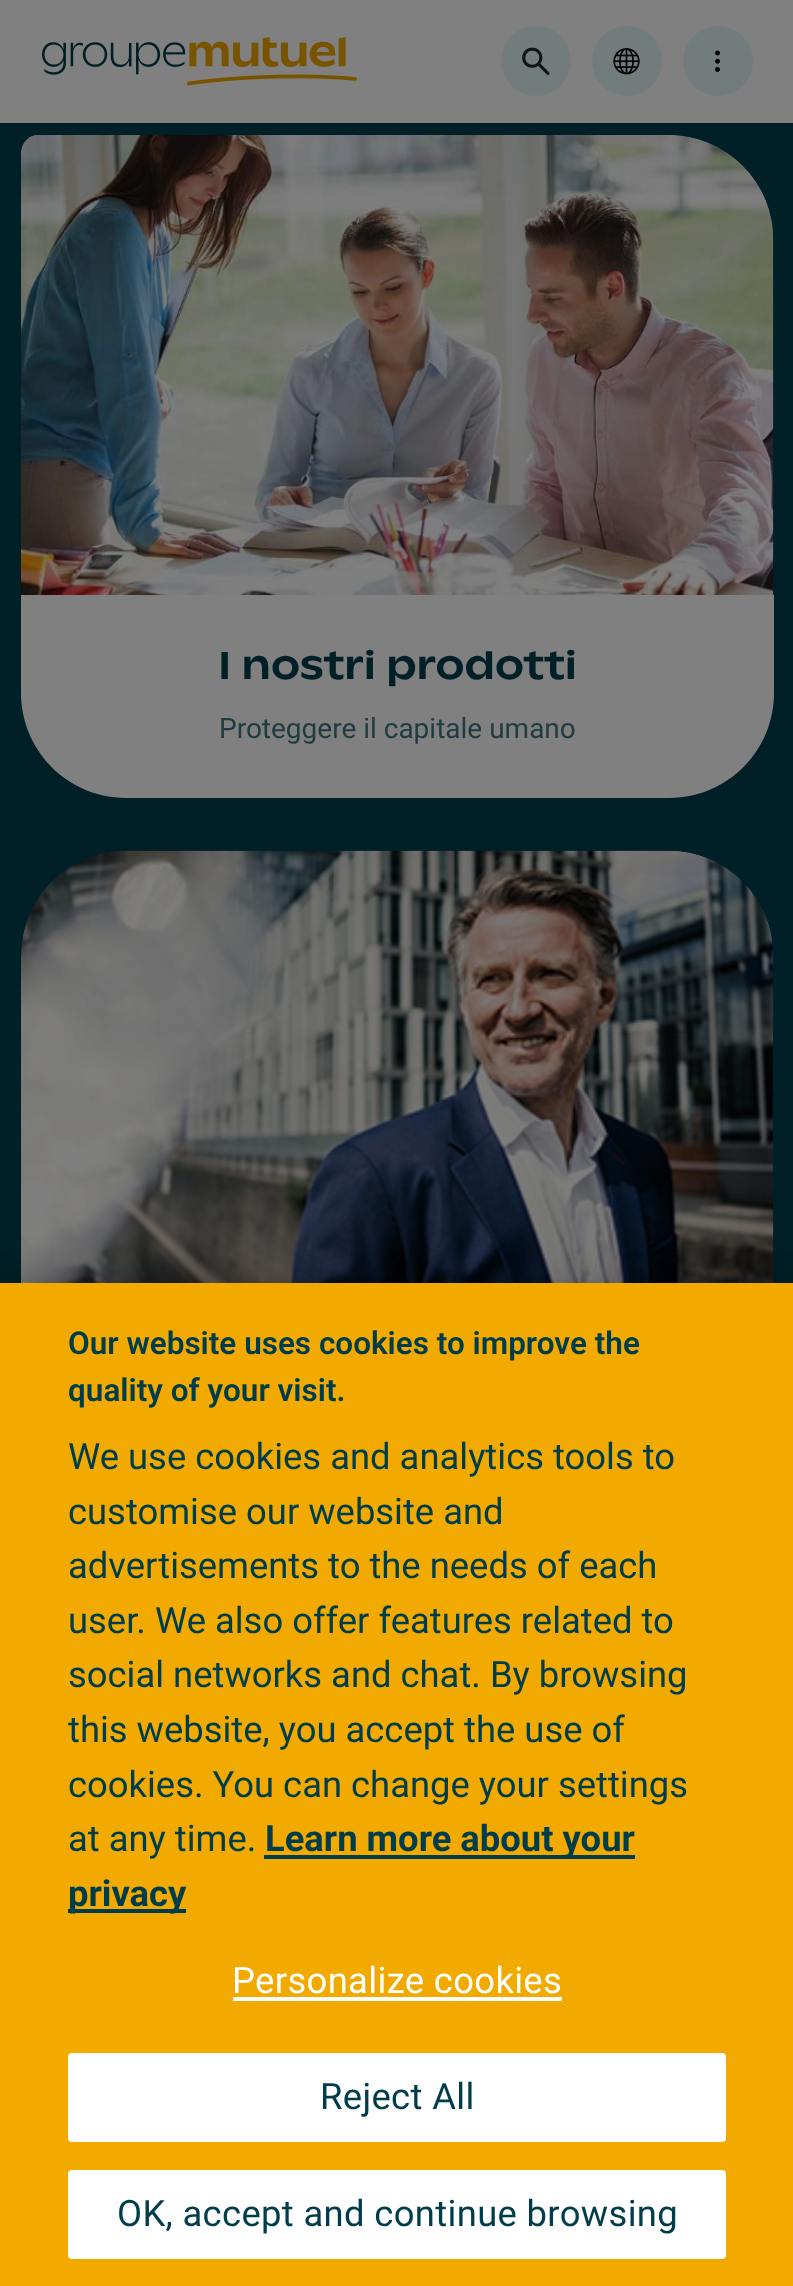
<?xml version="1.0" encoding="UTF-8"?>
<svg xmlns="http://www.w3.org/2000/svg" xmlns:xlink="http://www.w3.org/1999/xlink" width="793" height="2286">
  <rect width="100%" height="100%" fill="#001f26" />
  <path d="M 0 122 v 2 h 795 v -122 h -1 v 120 z" fill="#000000" fill-opacity="0.1" />
  <rect width="793" height="123" fill="#808080" />
  <image x="42" y="37" width="315" height="49" xlink:href="image1.png" />
  <circle cx="536" cy="61" r="35" fill="#737c7d" />
  <image x="522" y="47" width="28" height="28" xlink:href="image2.png" />
  <circle cx="627" cy="61" r="35" fill="#737c7d" />
  <image x="613" y="48" width="27" height="27" xlink:href="image3.png" />
  <circle cx="718" cy="61" r="35" fill="#737c7d" />
  <image x="715" y="50" width="5" height="22" xlink:href="image4.png" />
  <image x="21" y="135" width="753" height="460" xlink:href="image5.png" />
  <path d="M 21 595 h 753 v 98 c 0 58 -47 105 -105 105 h -543 c -58 0 -105 -47 -105 -105 z" fill="#808080" />
  <image x="21" y="850" width="753" height="433" xlink:href="image6.png" />
  <rect y="1283" width="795" height="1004" fill="#000000" fill-opacity="0.2" filter="blur(16px)" />
  <rect y="1283" width="793" height="1003" fill="#f2a900" />
  <rect x="264" y="1855" width="371" height="4" fill="#003d4c" />
  <rect x="68" y="1909" width="118" height="4" fill="#003d4c" />
  <rect x="233" y="1997" width="329" height="4" fill="#ffffff" />
  <rect x="69" y="2054" width="656" height="87" rx="3" fill="#ffffff" stroke="#ffffff" stroke-width="2" />
  <rect x="69" y="2171" width="656" height="87" rx="3" fill="#ffffff" stroke="#ffffff" stroke-width="2" />
  <text x="218" y="679" style="font-family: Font; font-size: 38.5px; font-weight: 500; fill: #001f26">I nostri prodotti</text>
  <text x="219" y="738" style="font-family: Roboto; font-size: 28px; fill: #223b42">Proteggere il capitale umano</text>
  <text x="68" y="1354" style="font-family: Roboto; font-size: 31.5px; font-weight: 600; fill: #003d4c">Our website uses cookies to improve the</text>
  <text x="68" y="1401" style="font-family: Roboto; font-size: 31.5px; font-weight: 600; fill: #003d4c">quality of your visit.</text>
  <text x="68" y="1469" style="font-family: Roboto; font-size: 36.4px; fill: #003d4c">We use cookies and analytics tools to</text>
  <text x="68" y="1524" style="font-family: Roboto; font-size: 36.4px; fill: #003d4c">customise our website and</text>
  <text x="68" y="1578" style="font-family: Roboto; font-size: 36.4px; fill: #003d4c">advertisements to the needs of each</text>
  <text x="68" y="1633" style="font-family: Roboto; font-size: 36.4px; fill: #003d4c">user. We also offer features related to</text>
  <text x="68" y="1687" style="font-family: Roboto; font-size: 36.4px; fill: #003d4c">social networks and chat. By browsing</text>
  <text x="68" y="1742" style="font-family: Roboto; font-size: 36.4px; fill: #003d4c">this website, you accept the use of</text>
  <text x="68" y="1797" style="font-family: Roboto; font-size: 36.4px; fill: #003d4c">cookies. You can change your settings</text>
  <text x="68" y="1851" style="font-family: Roboto; font-size: 36.4px; fill: #003d4c">at any time.</text>
  <text x="265" y="1851" style="font-family: Roboto; font-size: 36.4px; font-weight: bold; fill: #003d4c">Learn more about your</text>
  <text x="68" y="1906" style="font-family: Roboto; font-size: 36.4px; font-weight: bold; fill: #003d4c">privacy</text>
  <text x="232" y="1993" style="font-family: Roboto; font-size: 36.4px; letter-spacing: 0.35px; fill: #ffffff">Personalize cookies</text>
  <text x="320" y="2109" style="font-family: Roboto; font-size: 36.4px; letter-spacing: 0.35px; fill: #003d4c">Reject All</text>
  <text x="117" y="2226" style="font-family: Roboto; font-size: 36.4px; letter-spacing: 0.35px; fill: #003d4c">OK, accept and continue browsing</text>
</svg>
